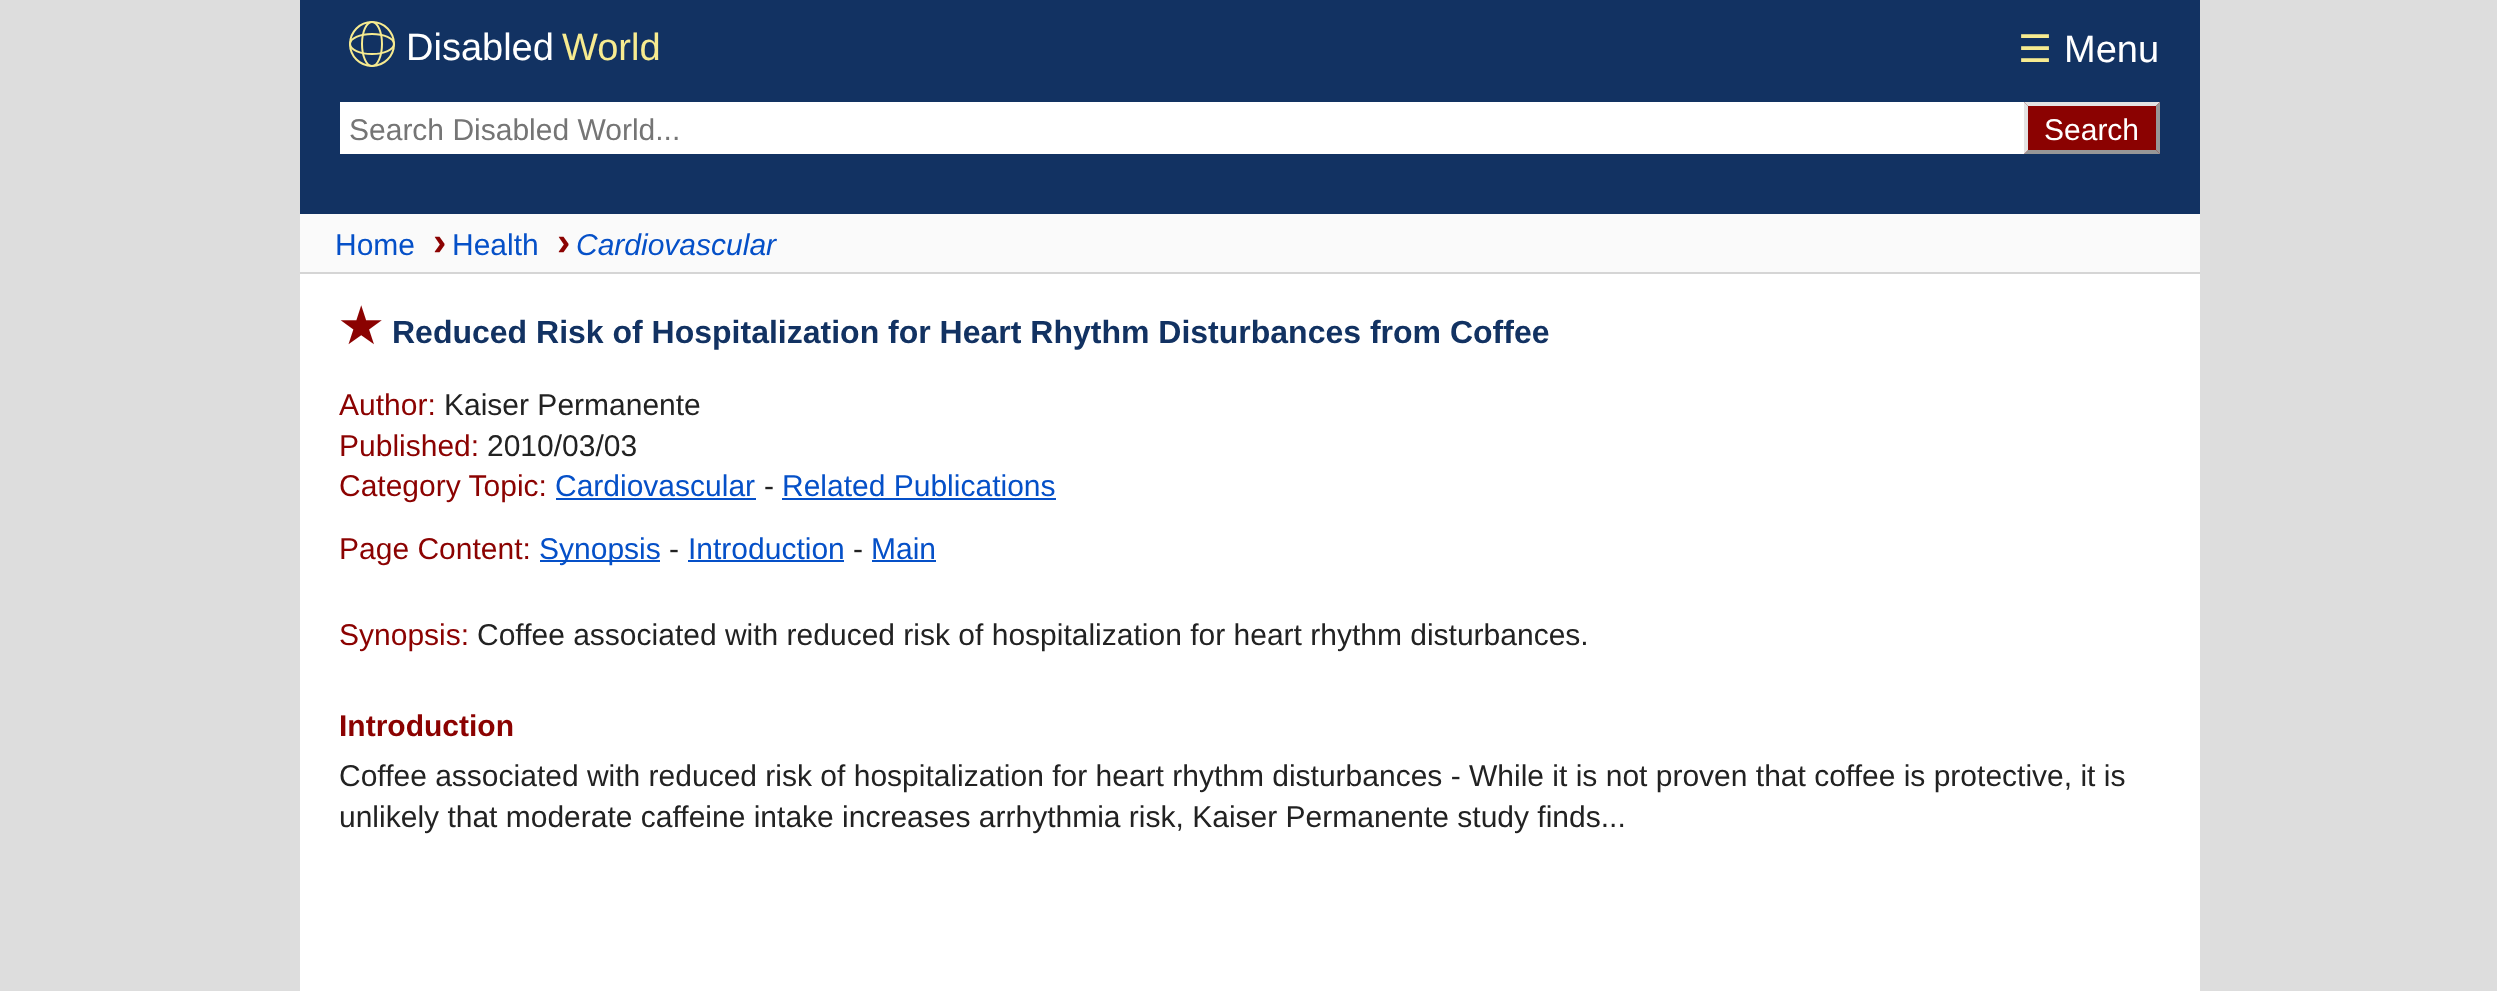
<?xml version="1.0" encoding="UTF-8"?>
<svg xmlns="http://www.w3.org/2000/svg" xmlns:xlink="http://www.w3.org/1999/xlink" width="2497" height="991">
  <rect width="100%" height="100%" fill="#dddddd" />
  <rect x="300" y="274" width="1900" height="717" fill="#ffffff" />
  <rect x="300" width="1900" height="214" fill="#123262" />
  <circle cx="372" cy="44" r="22" fill="none" stroke="#f7eb90" stroke-width="2" />
  <ellipse cx="372" cy="44" rx="10" ry="22" fill="none" stroke="#f7eb90" stroke-width="2" />
  <ellipse cx="372" cy="44" rx="22" ry="10" fill="none" stroke="#f7eb90" stroke-width="2" />
  <rect x="340" y="102" width="1684" height="52" fill="#ffffff" />
  <rect x="2024" y="102" width="136" height="52" fill="#8b0201" />
  <path d="M 2024 102 h 136 l -4 4 h -128 z" fill="#e3e3e3" />
  <path d="M 2160 102 v 52 l -4 -4 v -44 z" fill="#979797" />
  <path d="M 2160 154 h -136 l 4 -4 h 128 z" fill="#979797" />
  <path d="M 2024 154 v -52 l 4 4 v 44 z" fill="#e3e3e3" />
  <rect x="300" y="214" width="1900" height="58" fill="#fafafa" />
  <rect x="300" y="272" width="1900" height="2" fill="#d5d5d5" />
  <rect x="556" y="498" width="200" height="2" fill="#0550c8" />
  <rect x="782" y="498" width="274" height="2" fill="#0550c8" />
  <rect x="540" y="560" width="120" height="2" fill="#0550c8" />
  <rect x="688" y="560" width="156" height="2" fill="#0550c8" />
  <rect x="872" y="560" width="64" height="2" fill="#0550c8" />
  <text x="406" y="60" style="font-family: Liberation Sans; font-size: 38px; fill: #ffffff">Disabled</text>
  <text x="562" y="60" style="font-family: Liberation Sans; font-size: 38px; fill: #f7eb90">World</text>
  <text x="2018" y="62" style="font-family: DejaVu Sans; font-size: 38px; fill: #f7eb90">☰</text>
  <text x="2064" y="62" style="font-family: Liberation Sans; font-size: 38px; fill: #ffffff">Menu</text>
  <text x="349" y="140" style="font-family: Liberation Sans; font-size: 30px; fill: #757575">Search Disabled World...</text>
  <text x="2044" y="140" style="font-family: Liberation Sans; font-size: 30px; fill: #ffffff">Search</text>
  <text x="335" y="255" style="font-family: Liberation Sans; font-size: 30px; fill: #0550c8">Home</text>
  <text x="433" y="255" style="font-family: Liberation Sans; font-size: 40px; font-weight: bold; fill: #8b0201">›</text>
  <text x="452" y="255" style="font-family: Liberation Sans; font-size: 30px; fill: #0550c8">Health</text>
  <text x="557" y="255" style="font-family: Liberation Sans; font-size: 40px; font-weight: bold; fill: #8b0201">›</text>
  <text x="576" y="255" style="font-family: Liberation Sans; font-size: 30px; font-style: italic; fill: #0550c8">Cardiovascular</text>
  <text x="339" y="343" style="font-family: DejaVu Sans; font-size: 48px; font-weight: bold; fill: #8b0201">★</text>
  <text x="392" y="343" style="font-family: Liberation Sans; font-size: 32px; font-weight: bold; fill: #123262">Reduced Risk of Hospitalization for Heart Rhythm Disturbances from Coffee</text>
  <text x="339" y="415" style="font-family: Liberation Sans; font-size: 30px; fill: #8b0201">Author:</text>
  <text x="444" y="415" style="font-family: Liberation Sans; font-size: 30px; fill: #222222">Kaiser Permanente</text>
  <text x="339" y="456" style="font-family: Liberation Sans; font-size: 30px; fill: #8b0201">Published:</text>
  <text x="487" y="456" style="font-family: Liberation Sans; font-size: 30px; fill: #222222">2010/03/03</text>
  <text x="339" y="496" style="font-family: Liberation Sans; font-size: 30px; fill: #8b0201">Category Topic:</text>
  <text x="555" y="496" style="font-family: Liberation Sans; font-size: 30px; fill: #0550c8">Cardiovascular</text>
  <text x="764" y="496" style="font-family: Liberation Sans; font-size: 30px; fill: #222222">-</text>
  <text x="782" y="496" style="font-family: Liberation Sans; font-size: 30px; fill: #0550c8">Related Publications</text>
  <text x="339" y="559" style="font-family: Liberation Sans; font-size: 30px; fill: #8b0201">Page Content:</text>
  <text x="539" y="559" style="font-family: Liberation Sans; font-size: 30px; fill: #0550c8">Synopsis</text>
  <text x="669" y="559" style="font-family: Liberation Sans; font-size: 30px; fill: #222222">-</text>
  <text x="688" y="559" style="font-family: Liberation Sans; font-size: 30px; fill: #0550c8">Introduction</text>
  <text x="853" y="559" style="font-family: Liberation Sans; font-size: 30px; fill: #222222">-</text>
  <text x="871" y="559" style="font-family: Liberation Sans; font-size: 30px; fill: #0550c8">Main</text>
  <text x="339" y="645" style="font-family: Liberation Sans; font-size: 30px; fill: #8b0201">Synopsis:</text>
  <text x="477" y="645" style="font-family: Liberation Sans; font-size: 30px; fill: #222222">Coffee associated with reduced risk of hospitalization for heart rhythm disturbances.</text>
  <text x="339" y="736" style="font-family: Liberation Sans; font-size: 30px; font-weight: bold; fill: #8b0201">Introduction</text>
  <text x="339" y="786" style="font-family: Liberation Sans; font-size: 30px; fill: #222222">Coffee associated with reduced risk of hospitalization for heart rhythm disturbances - While it is not proven that coffee is protective, it is</text>
  <text x="339" y="827" style="font-family: Liberation Sans; font-size: 30px; fill: #222222">unlikely that moderate caffeine intake increases arrhythmia risk, Kaiser Permanente study finds...</text>
</svg>
